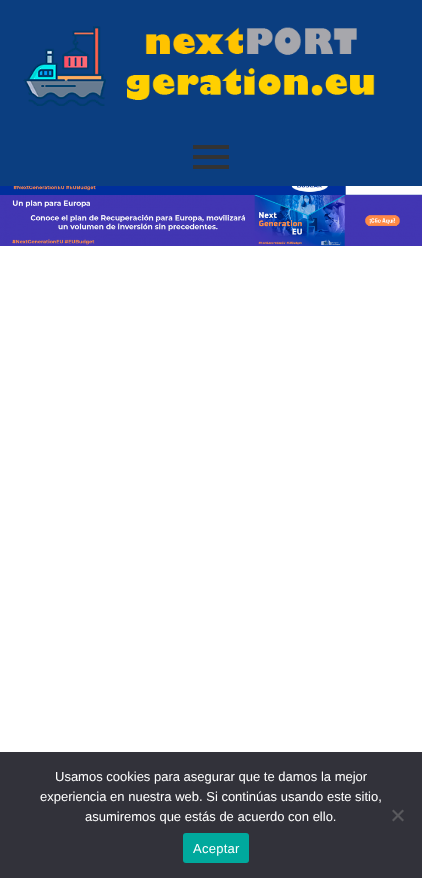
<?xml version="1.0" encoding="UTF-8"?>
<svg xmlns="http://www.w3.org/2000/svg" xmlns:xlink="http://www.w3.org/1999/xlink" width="422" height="878">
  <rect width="100%" height="100%" fill="#ffffff" />
  <rect width="422" height="186" fill="#0b3e80" />
  <image x="23" y="26" width="352" height="80" xlink:href="image1.png" />
  <rect x="193" y="145" width="36" height="4" fill="#333333" />
  <rect x="193" y="155" width="36" height="4" fill="#333333" />
  <rect x="193" y="165" width="36" height="4" fill="#333333" />
  <image x="0" y="186" width="422" height="9" xlink:href="image2.png" />
  <image x="0" y="195" width="422" height="51" xlink:href="image3.png" />
  <rect y="752" width="422" height="126" fill="#32323a" />
  <path d="M 402.5 809.5 l 1.5 1.5 l -10.5 10.5 l -1.5 -1.5 z" fill="#59595d" />
  <path d="M 392 811 l 1.5 -1.5 l 10.5 10.5 l -1.5 1.5 z" fill="#59595d" />
  <rect x="183" y="833" width="66" height="30" rx="3" fill="#00a99d" />
  <text x="55" y="781" style="font-family: Liberation Sans; font-size: 13px; fill: #ffffff">Usamos cookies para asegurar que te damos la mejor</text>
  <text x="40" y="801" style="font-family: Liberation Sans; font-size: 13px; fill: #ffffff">experiencia en nuestra web. Si continúas usando este sitio,</text>
  <text x="85" y="821" style="font-family: Liberation Sans; font-size: 13px; fill: #ffffff">asumiremos que estás de acuerdo con ello.</text>
  <text x="193" y="853" style="font-family: Liberation Sans; font-size: 13px; letter-spacing: 0.25px; fill: #ffffff">Aceptar</text>
</svg>
